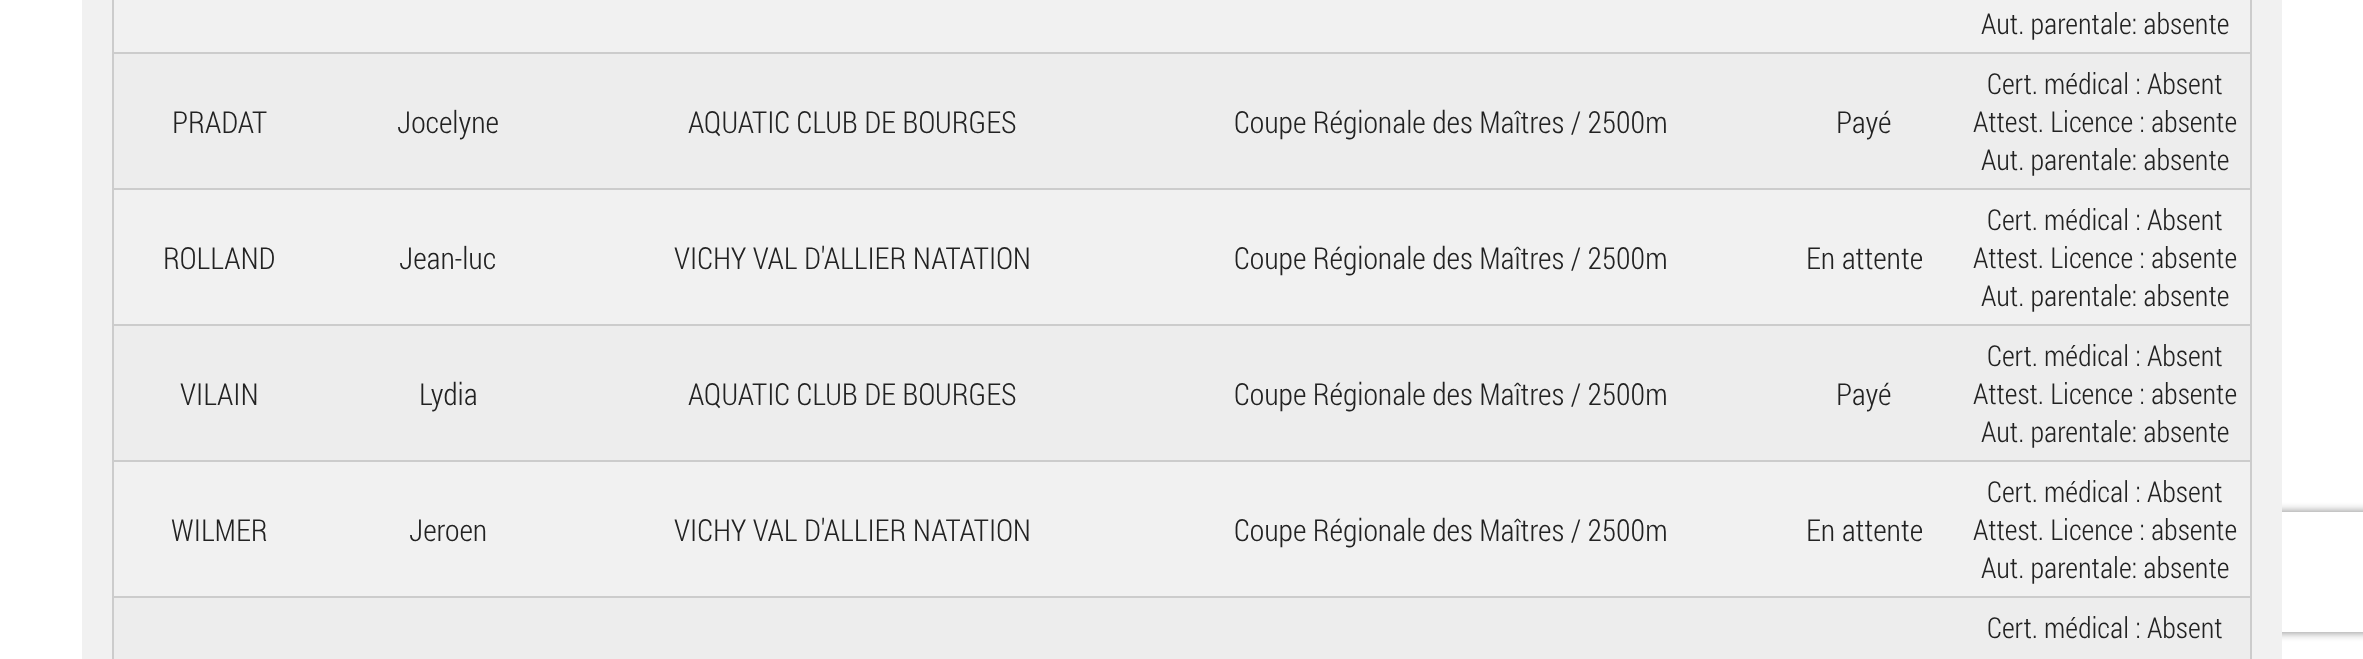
<?xml version="1.0" encoding="UTF-8"?>
<svg xmlns="http://www.w3.org/2000/svg" xmlns:xlink="http://www.w3.org/1999/xlink" width="2363" height="659">
  <defs>
    <clipPath id="clip1"><path d="M 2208 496 h 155 v 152 h -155 z m 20 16 h 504 c 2 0 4 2 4 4 v 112 c 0 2 -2 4 -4 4 h -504 c -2 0 -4 -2 -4 -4 v -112 c 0 -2 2 -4 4 -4 z" clip-rule="evenodd" /></clipPath>
  </defs>
  <rect width="100%" height="100%" fill="#ffffff" />
  <g clip-path="url(#clip1)">
    <rect x="2224" y="512" width="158" height="120" rx="4" fill="#808080" filter="blur(5px)" />
  </g>
  <rect x="82" width="2200" height="659" fill="#f1f1f1" />
  <rect x="2250" width="2" height="659" fill="#cccccc" />
  <rect x="112" width="2" height="659" fill="#cccccc" />
  <rect x="112" y="52" width="2140" height="2" fill="#cccccc" />
  <rect x="114" y="54" width="2136" height="134" fill="#ededed" />
  <rect x="112" y="188" width="2140" height="2" fill="#cccccc" />
  <rect x="112" y="324" width="2140" height="2" fill="#cccccc" />
  <rect x="114" y="326" width="2136" height="134" fill="#ededed" />
  <rect x="112" y="460" width="2140" height="2" fill="#cccccc" />
  <rect x="112" y="596" width="2140" height="2" fill="#cccccc" />
  <rect x="114" y="598" width="2136" height="61" fill="#ededed" />
  <text x="1981" y="34" style="font-family: Roboto Condensed; font-size: 28.75px; font-weight: 300; fill: #222222">Aut. parentale: absente</text>
  <text x="172" y="133" style="font-family: Roboto Condensed; font-size: 30.4px; font-weight: 300; fill: #222222">PRADAT</text>
  <text x="397" y="133" style="font-family: Roboto Condensed; font-size: 30.4px; font-weight: 300; fill: #222222">Jocelyne</text>
  <text x="688" y="133" style="font-family: Roboto Condensed; font-size: 30.4px; font-weight: 300; fill: #222222">AQUATIC CLUB DE BOURGES</text>
  <text x="1234" y="133" style="font-family: Roboto Condensed; font-size: 30.4px; font-weight: 300; fill: #222222">Coupe Régionale des Maîtres / 2500m</text>
  <text x="1836" y="133" style="font-family: Roboto Condensed; font-size: 30.4px; font-weight: 300; fill: #222222">Payé</text>
  <text x="1987" y="94" style="font-family: Roboto Condensed; font-size: 28.75px; font-weight: 300; fill: #222222">Cert. médical : Absent</text>
  <text x="1973" y="132" style="font-family: Roboto Condensed; font-size: 28.75px; font-weight: 300; fill: #222222">Attest. Licence : absente</text>
  <text x="1981" y="170" style="font-family: Roboto Condensed; font-size: 28.75px; font-weight: 300; fill: #222222">Aut. parentale: absente</text>
  <text x="163" y="269" style="font-family: Roboto Condensed; font-size: 30.4px; font-weight: 300; fill: #222222">ROLLAND</text>
  <text x="399" y="269" style="font-family: Roboto Condensed; font-size: 30.4px; font-weight: 300; fill: #222222">Jean-luc</text>
  <text x="674" y="269" style="font-family: Roboto Condensed; font-size: 30.4px; font-weight: 300; fill: #222222">VICHY VAL D'ALLIER NATATION</text>
  <text x="1234" y="269" style="font-family: Roboto Condensed; font-size: 30.4px; font-weight: 300; fill: #222222">Coupe Régionale des Maîtres / 2500m</text>
  <text x="1806" y="269" style="font-family: Roboto Condensed; font-size: 30.4px; font-weight: 300; fill: #222222">En attente</text>
  <text x="1987" y="230" style="font-family: Roboto Condensed; font-size: 28.75px; font-weight: 300; fill: #222222">Cert. médical : Absent</text>
  <text x="1973" y="268" style="font-family: Roboto Condensed; font-size: 28.75px; font-weight: 300; fill: #222222">Attest. Licence : absente</text>
  <text x="1981" y="306" style="font-family: Roboto Condensed; font-size: 28.75px; font-weight: 300; fill: #222222">Aut. parentale: absente</text>
  <text x="180" y="405" style="font-family: Roboto Condensed; font-size: 30.4px; font-weight: 300; fill: #222222">VILAIN</text>
  <text x="419" y="405" style="font-family: Roboto Condensed; font-size: 30.4px; font-weight: 300; fill: #222222">Lydia</text>
  <text x="688" y="405" style="font-family: Roboto Condensed; font-size: 30.4px; font-weight: 300; fill: #222222">AQUATIC CLUB DE BOURGES</text>
  <text x="1234" y="405" style="font-family: Roboto Condensed; font-size: 30.4px; font-weight: 300; fill: #222222">Coupe Régionale des Maîtres / 2500m</text>
  <text x="1836" y="405" style="font-family: Roboto Condensed; font-size: 30.4px; font-weight: 300; fill: #222222">Payé</text>
  <text x="1987" y="366" style="font-family: Roboto Condensed; font-size: 28.75px; font-weight: 300; fill: #222222">Cert. médical : Absent</text>
  <text x="1973" y="404" style="font-family: Roboto Condensed; font-size: 28.75px; font-weight: 300; fill: #222222">Attest. Licence : absente</text>
  <text x="1981" y="442" style="font-family: Roboto Condensed; font-size: 28.75px; font-weight: 300; fill: #222222">Aut. parentale: absente</text>
  <text x="171" y="541" style="font-family: Roboto Condensed; font-size: 30.4px; font-weight: 300; fill: #222222">WILMER</text>
  <text x="409" y="541" style="font-family: Roboto Condensed; font-size: 30.4px; font-weight: 300; fill: #222222">Jeroen</text>
  <text x="674" y="541" style="font-family: Roboto Condensed; font-size: 30.4px; font-weight: 300; fill: #222222">VICHY VAL D'ALLIER NATATION</text>
  <text x="1234" y="541" style="font-family: Roboto Condensed; font-size: 30.4px; font-weight: 300; fill: #222222">Coupe Régionale des Maîtres / 2500m</text>
  <text x="1806" y="541" style="font-family: Roboto Condensed; font-size: 30.4px; font-weight: 300; fill: #222222">En attente</text>
  <text x="1987" y="502" style="font-family: Roboto Condensed; font-size: 28.75px; font-weight: 300; fill: #222222">Cert. médical : Absent</text>
  <text x="1973" y="540" style="font-family: Roboto Condensed; font-size: 28.75px; font-weight: 300; fill: #222222">Attest. Licence : absente</text>
  <text x="1981" y="578" style="font-family: Roboto Condensed; font-size: 28.75px; font-weight: 300; fill: #222222">Aut. parentale: absente</text>
  <text x="1987" y="638" style="font-family: Roboto Condensed; font-size: 28.75px; font-weight: 300; fill: #222222">Cert. médical : Absent</text>
</svg>
